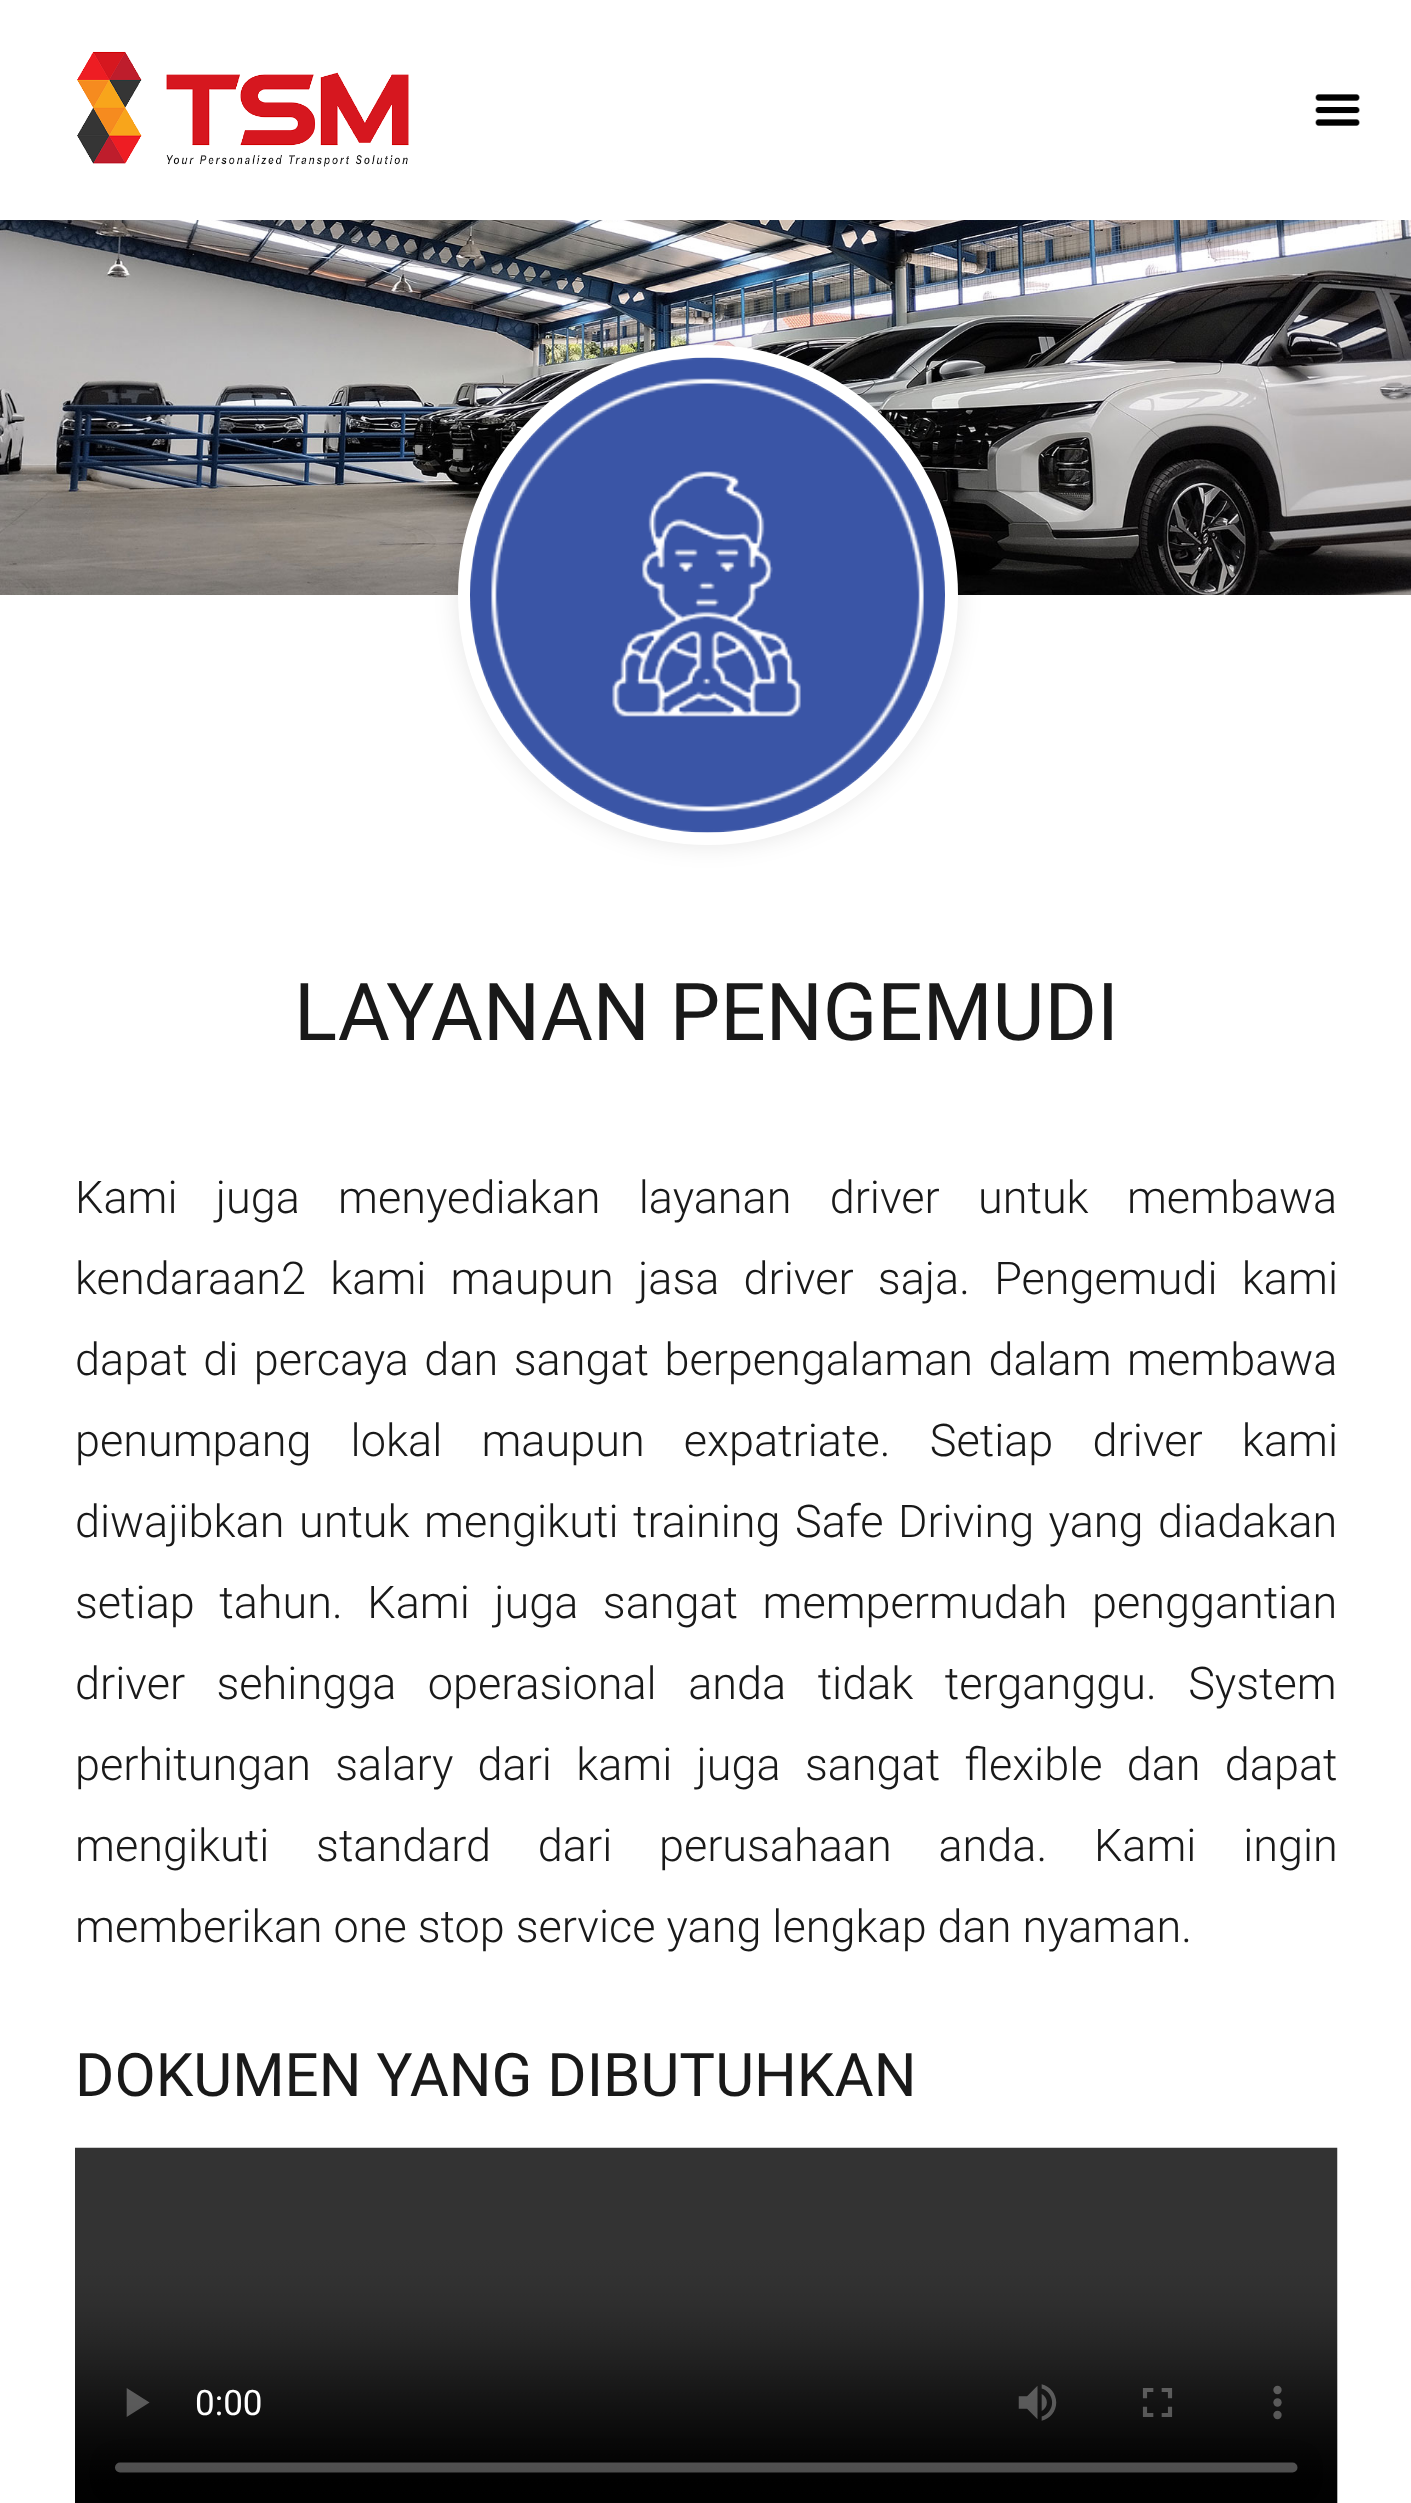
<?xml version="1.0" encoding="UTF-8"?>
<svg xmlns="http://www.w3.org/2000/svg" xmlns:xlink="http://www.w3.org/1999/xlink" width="1411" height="2503">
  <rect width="100%" height="100%" fill="#ffffff" />
  <image x="77" y="51" width="332" height="116" xlink:href="image1.png" />
  <image x="1315" y="94" width="45" height="32" xlink:href="image2.png" />
  <image x="0" y="220" width="1411" height="375" xlink:href="image3.png" />
  <rect x="458" y="345" width="500" height="500" rx="250" fill="#000000" fill-opacity="0.1" filter="blur(12.5px)" />
  <circle cx="708" cy="595" r="243.5" fill="#ffffff" stroke="#ffffff" stroke-width="13" />
  <image x="470" y="357" width="475" height="476" xlink:href="image4.png" />
  <image x="75" y="2147" width="1263" height="356" xlink:href="image5.png" />
  <text x="294" y="1040" style="font-family: Roboto; font-size: 80px; fill: #191919">LAYANAN PENGEMUDI</text>
  <text x="75" y="1213" word-spacing="27.25" style="font-family: Roboto; font-size: 45px; font-weight: 300; fill: #191919">Kami juga menyediakan layanan driver untuk membawa</text>
  <text x="75" y="1294" word-spacing="13.25" style="font-family: Roboto; font-size: 45px; font-weight: 300; fill: #191919">kendaraan2 kami maupun jasa driver saja. Pengemudi kami</text>
  <text x="75" y="1375" word-spacing="4.5" style="font-family: Roboto; font-size: 45px; font-weight: 300; fill: #191919">dapat di percaya dan sangat berpengalaman dalam membawa</text>
  <text x="75" y="1456" word-spacing="28.25" style="font-family: Roboto; font-size: 45px; font-weight: 300; fill: #191919">penumpang lokal maupun expatriate. Setiap driver kami</text>
  <text x="75" y="1537" word-spacing="3.5" style="font-family: Roboto; font-size: 45px; font-weight: 300; fill: #191919">diwajibkan untuk mengikuti training Safe Driving yang diadakan</text>
  <text x="75" y="1618" word-spacing="13.5" style="font-family: Roboto; font-size: 45px; font-weight: 300; fill: #191919">setiap tahun. Kami juga sangat mempermudah penggantian</text>
  <text x="75" y="1699" word-spacing="20.5" style="font-family: Roboto; font-size: 45px; font-weight: 300; fill: #191919">driver sehingga operasional anda tidak terganggu. System</text>
  <text x="75" y="1780" word-spacing="13.25" style="font-family: Roboto; font-size: 45px; font-weight: 300; fill: #191919">perhitungan salary dari kami juga sangat flexible dan dapat</text>
  <text x="75" y="1861" word-spacing="35.75" style="font-family: Roboto; font-size: 45px; font-weight: 300; fill: #191919">mengikuti standard dari perusahaan anda. Kami ingin</text>
  <text x="75" y="1942" style="font-family: Roboto; font-size: 45px; font-weight: 300; fill: #191919">memberikan one stop service yang lengkap dan nyaman.</text>
  <text x="75" y="2096" style="font-family: Roboto; font-size: 60px; fill: #191919">DOKUMEN YANG DIBUTUHKAN</text>
</svg>
